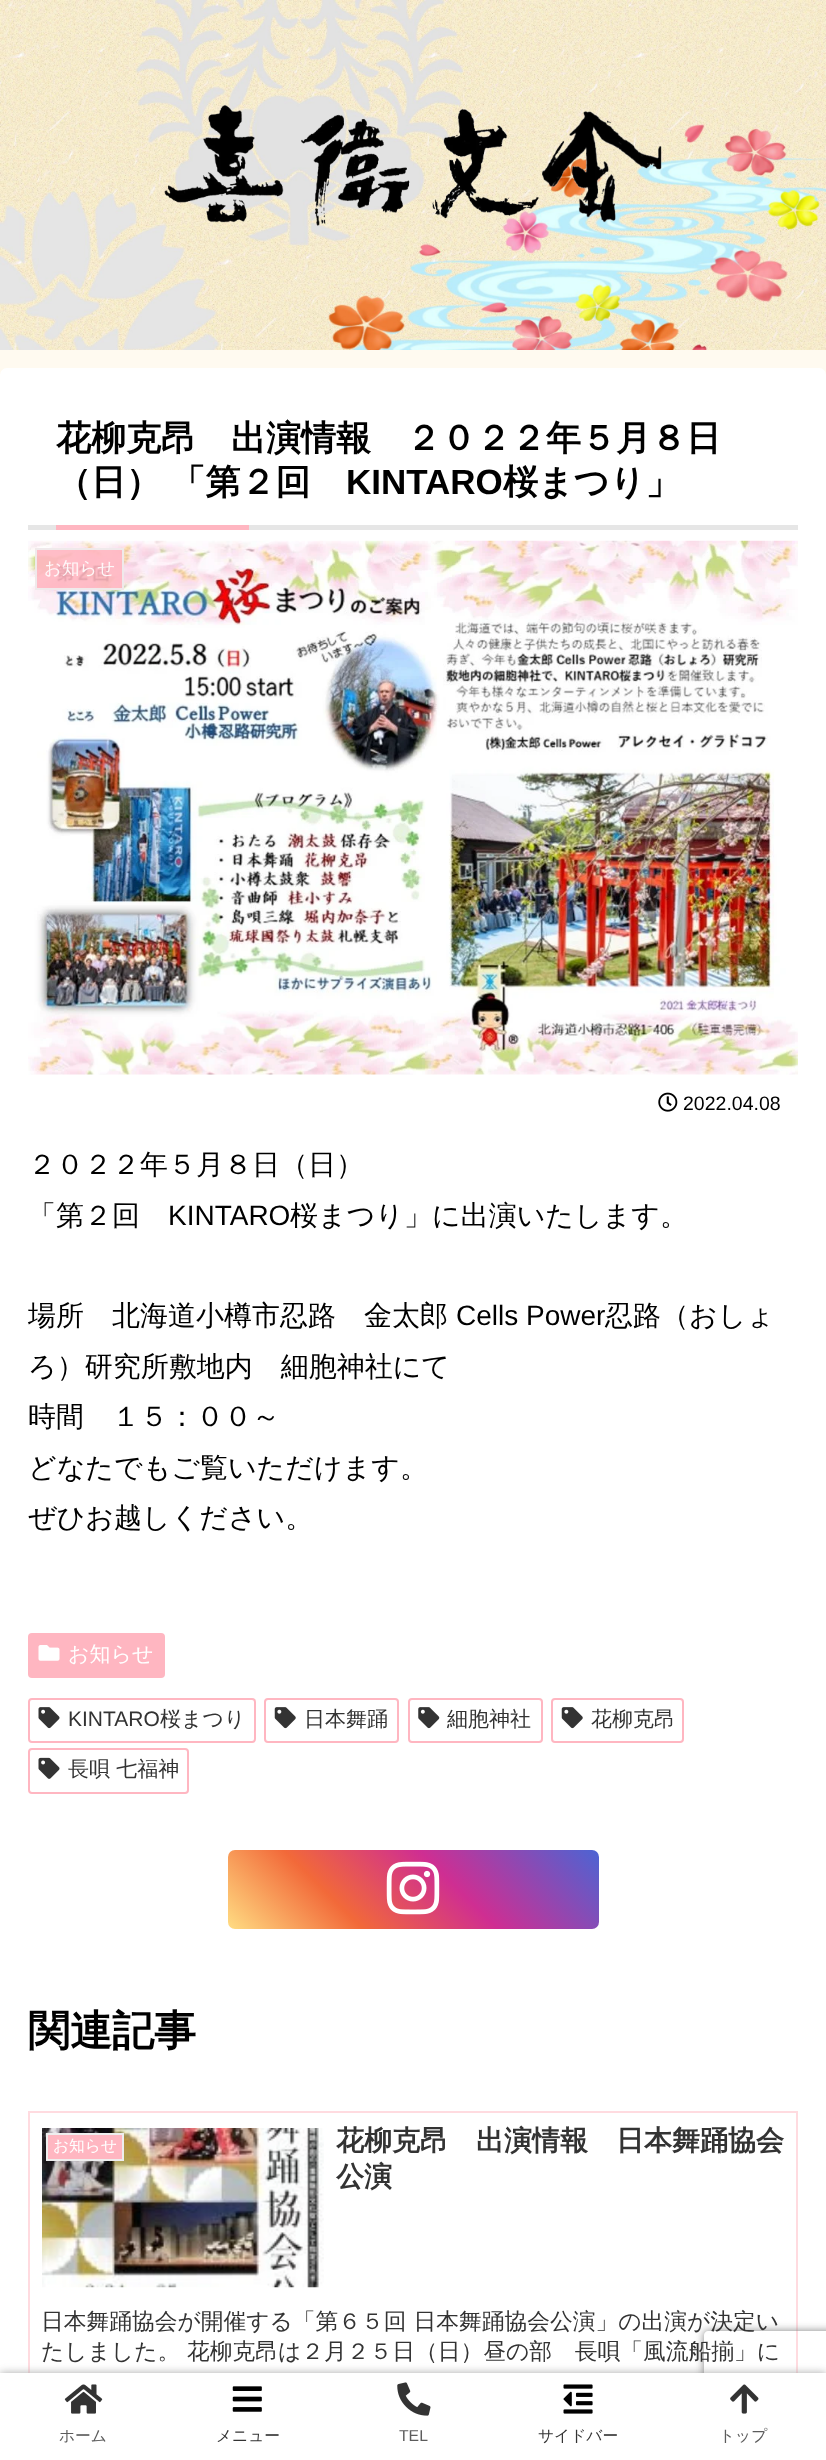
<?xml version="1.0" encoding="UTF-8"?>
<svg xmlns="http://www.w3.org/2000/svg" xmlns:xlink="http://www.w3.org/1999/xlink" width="826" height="2460">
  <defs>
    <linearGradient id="g1" gradientUnits="userSpaceOnUse" x1="301" y1="2002" x2="525" y2="1777"><stop offset="0" stop-color="#ffdd83" /><stop offset="0.3" stop-color="#f26939" /><stop offset="0.6" stop-color="#cf2e92" /><stop offset="1" stop-color="#4c64d3" /></linearGradient>
    <clipPath id="clip1"><path d="M 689 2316 h 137 v 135 h -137 z m 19 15 h 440 c 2 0 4 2 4 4 v 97 c 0 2 -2 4 -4 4 h -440 c -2 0 -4 -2 -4 -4 v -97 c 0 -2 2 -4 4 -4 z" clip-rule="evenodd" /></clipPath>
  </defs>
  <rect width="100%" height="100%" fill="#fffaf0" />
  <image x="0" y="0" width="826" height="350" xlink:href="image1.png" />
  <image x="164" y="105" width="498" height="121" xlink:href="image2.png" />
  <rect y="368" width="826" height="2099" rx="7" fill="#ffffff" />
  <rect x="28" y="525" width="770" height="5" fill="#e6e6e6" />
  <rect x="56" y="525" width="193" height="5" fill="#ffb6c1" />
  <image x="28" y="540" width="770" height="535" xlink:href="image3.png" />
  <rect x="35" y="548" width="89" height="42" fill="#ffb6c1" fill-opacity="0.9" />
  <rect x="36" y="549" width="87" height="40" fill="none" stroke="#eeeeee" stroke-opacity="0.9" stroke-width="2" />
  <image x="658" y="1092" width="20" height="20" xlink:href="image4.png" />
  <rect x="28" y="1633" width="137" height="45" rx="4" fill="#ffb6c1" />
  <image x="38" y="1645" width="22" height="16" xlink:href="image5.png" />
  <rect x="29" y="1699" width="226" height="43" rx="3" fill="none" stroke="#ffb6c1" stroke-width="2" />
  <image x="38" y="1707" width="22" height="22" xlink:href="image6.png" />
  <rect x="265" y="1699" width="133" height="43" rx="3" fill="none" stroke="#ffb6c1" stroke-width="2" />
  <image x="274" y="1707" width="22" height="22" xlink:href="image7.png" />
  <rect x="409" y="1699" width="133" height="43" rx="3" fill="none" stroke="#ffb6c1" stroke-width="2" />
  <image x="418" y="1707" width="22" height="22" xlink:href="image8.png" />
  <rect x="552" y="1699" width="131" height="43" rx="3" fill="none" stroke="#ffb6c1" stroke-width="2" />
  <image x="561" y="1707" width="22" height="22" xlink:href="image7.png" />
  <rect x="29" y="1749" width="159" height="44" rx="3" fill="none" stroke="#ffb6c1" stroke-width="2" />
  <image x="38" y="1757" width="22" height="22" xlink:href="image9.png" />
  <rect x="228" y="1850" width="371" height="79" rx="7" fill="url(#g1)" />
  <image x="386" y="1861" width="54" height="54" xlink:href="image10.png" />
  <rect x="29" y="2112" width="768" height="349" fill="none" stroke="#ffdbe0" stroke-width="2" />
  <image x="42" y="2128" width="282" height="160" xlink:href="image11.png" />
  <rect x="47" y="2134" width="76" height="26" fill="#ffb6c1" stroke="#eeeeee" stroke-width="2" />
  <rect y="2373" width="826" height="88" fill="#a9a9a9" filter="blur(4.5px)" />
  <g clip-path="url(#clip1)">
    <rect x="704" y="2331" width="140" height="105" rx="4" fill="#808080" filter="blur(4.5px)" />
  </g>
  <rect y="2373" width="826" height="87" fill="#ffffff" />
  <image x="64" y="2384" width="39" height="30" xlink:href="image12.png" />
  <image x="232" y="2386" width="30" height="26" xlink:href="image13.png" />
  <image x="397" y="2382" width="34" height="34" xlink:href="image14.png" />
  <image x="563" y="2384" width="30" height="30" xlink:href="image15.png" />
  <image x="730" y="2384" width="29" height="30" xlink:href="image16.png" />
  <text x="56" y="450" style="font-family: WenQuanYi Zen Hei; font-size: 35px; font-weight: bold; fill: #000000">花柳克昂　出演情報　２０２２年５月８日</text>
  <text x="56" y="494" word-spacing="-1" style="font-family: WenQuanYi Zen Hei; font-size: 35px; font-weight: bold; fill: #000000">（日） 「第２回</text>
  <text x="346" y="494" style="font-family: Liberation Sans; font-size: 35px; font-weight: bold; fill: #000000">KINTARO</text>
  <text x="503" y="494" style="font-family: WenQuanYi Zen Hei; font-size: 35px; font-weight: bold; fill: #000000">桜まつり」</text>
  <text x="44" y="574" style="font-family: WenQuanYi Zen Hei; font-size: 17.5px; font-weight: 500; fill: #fef8f9">お知らせ</text>
  <text x="683" y="1110" style="font-family: Liberation Sans; font-size: 19.5px; fill: #000000">2022.04.08</text>
  <text x="28" y="1174" style="font-family: WenQuanYi Zen Hei; font-size: 28px; font-weight: 500; fill: #000000">２０２２年５月８日（日）</text>
  <text x="28" y="1225" style="font-family: WenQuanYi Zen Hei; font-size: 28px; font-weight: 500; fill: #000000">「第２回</text>
  <text x="168" y="1225" style="font-family: Liberation Sans; font-size: 28px; fill: #000000">KINTARO</text>
  <text x="290" y="1225" style="font-family: WenQuanYi Zen Hei; font-size: 28px; font-weight: 500; fill: #000000">桜まつり」に出演いたします。</text>
  <text x="28" y="1325" style="font-family: WenQuanYi Zen Hei; font-size: 28px; font-weight: 500; fill: #000000">場所　北海道小樽市忍路　金太郎</text>
  <text x="456" y="1325" style="font-family: Liberation Sans; font-size: 28px; fill: #000000">Cells Power</text>
  <text x="605" y="1325" style="font-family: WenQuanYi Zen Hei; font-size: 28px; font-weight: 500; fill: #000000">忍路（おしょ</text>
  <text x="28" y="1376" style="font-family: WenQuanYi Zen Hei; font-size: 28px; font-weight: 500; fill: #000000">ろ）研究所敷地内　細胞神社にて</text>
  <text x="28" y="1426" style="font-family: WenQuanYi Zen Hei; font-size: 28px; font-weight: 500; fill: #000000">時間　１５：００～</text>
  <text x="28" y="1477" style="font-family: WenQuanYi Zen Hei; font-size: 28px; font-weight: 500; fill: #000000">どなたでもご覧いただけます。</text>
  <text x="28" y="1527" style="font-family: WenQuanYi Zen Hei; font-size: 28px; font-weight: 500; fill: #000000">ぜひお越しください。</text>
  <text x="68" y="1661" style="font-family: WenQuanYi Zen Hei; font-size: 21px; font-weight: 500; fill: #ffffff">お知らせ</text>
  <text x="68" y="1726" style="font-family: Liberation Sans; font-size: 21px; fill: #333333">KINTARO</text>
  <text x="160" y="1726" style="font-family: WenQuanYi Zen Hei; font-size: 21px; font-weight: 500; fill: #333333">桜まつり</text>
  <text x="304" y="1726" style="font-family: WenQuanYi Zen Hei; font-size: 21px; font-weight: 500; fill: #333333">日本舞踊</text>
  <text x="447" y="1726" style="font-family: WenQuanYi Zen Hei; font-size: 21px; font-weight: 500; fill: #333333">細胞神社</text>
  <text x="591" y="1726" style="font-family: WenQuanYi Zen Hei; font-size: 21px; font-weight: 500; fill: #333333">花柳克昂</text>
  <text x="68" y="1776" style="font-family: WenQuanYi Zen Hei; font-size: 21px; font-weight: 500; fill: #333333">長唄 七福神</text>
  <text x="28" y="2045" style="font-family: WenQuanYi Zen Hei; font-size: 42px; font-weight: bold; fill: #000000">関連記事</text>
  <text x="336" y="2150" style="font-family: WenQuanYi Zen Hei; font-size: 28px; font-weight: bold; fill: #333333">花柳克昂　出演情報　日本舞踊協会</text>
  <text x="336" y="2186" style="font-family: WenQuanYi Zen Hei; font-size: 28px; font-weight: bold; fill: #333333">公演</text>
  <text x="41" y="2329" style="font-family: WenQuanYi Zen Hei; font-size: 22.75px; font-weight: 500; fill: #333333">日本舞踊協会が開催する「第６５回 日本舞踊協会公演」の出演が決定い</text>
  <text x="41" y="2359" style="font-family: WenQuanYi Zen Hei; font-size: 22.75px; font-weight: 500; fill: #333333">たしました。 花柳克昂は２月２５日（日）昼の部　長唄「風流船揃」に</text>
  <text x="53" y="2151" style="font-family: WenQuanYi Zen Hei; font-size: 15.75px; font-weight: 500; fill: #ffffff">お知らせ</text>
  <text x="59" y="2441" style="font-family: WenQuanYi Zen Hei; font-size: 15.75px; font-weight: 500; fill: #5c5c5c">ホーム</text>
  <text x="216" y="2441" style="font-family: WenQuanYi Zen Hei; font-size: 15.75px; font-weight: 500; fill: #333333">メニュー</text>
  <text x="399" y="2441" style="font-family: Liberation Sans; font-size: 15.75px; fill: #5c5c5c">TEL</text>
  <text x="538" y="2441" style="font-family: WenQuanYi Zen Hei; font-size: 15.75px; font-weight: 500; fill: #333333">サイドバー</text>
  <text x="719" y="2441" style="font-family: WenQuanYi Zen Hei; font-size: 15.75px; font-weight: 500; fill: #5c5c5c">トップ</text>
</svg>
